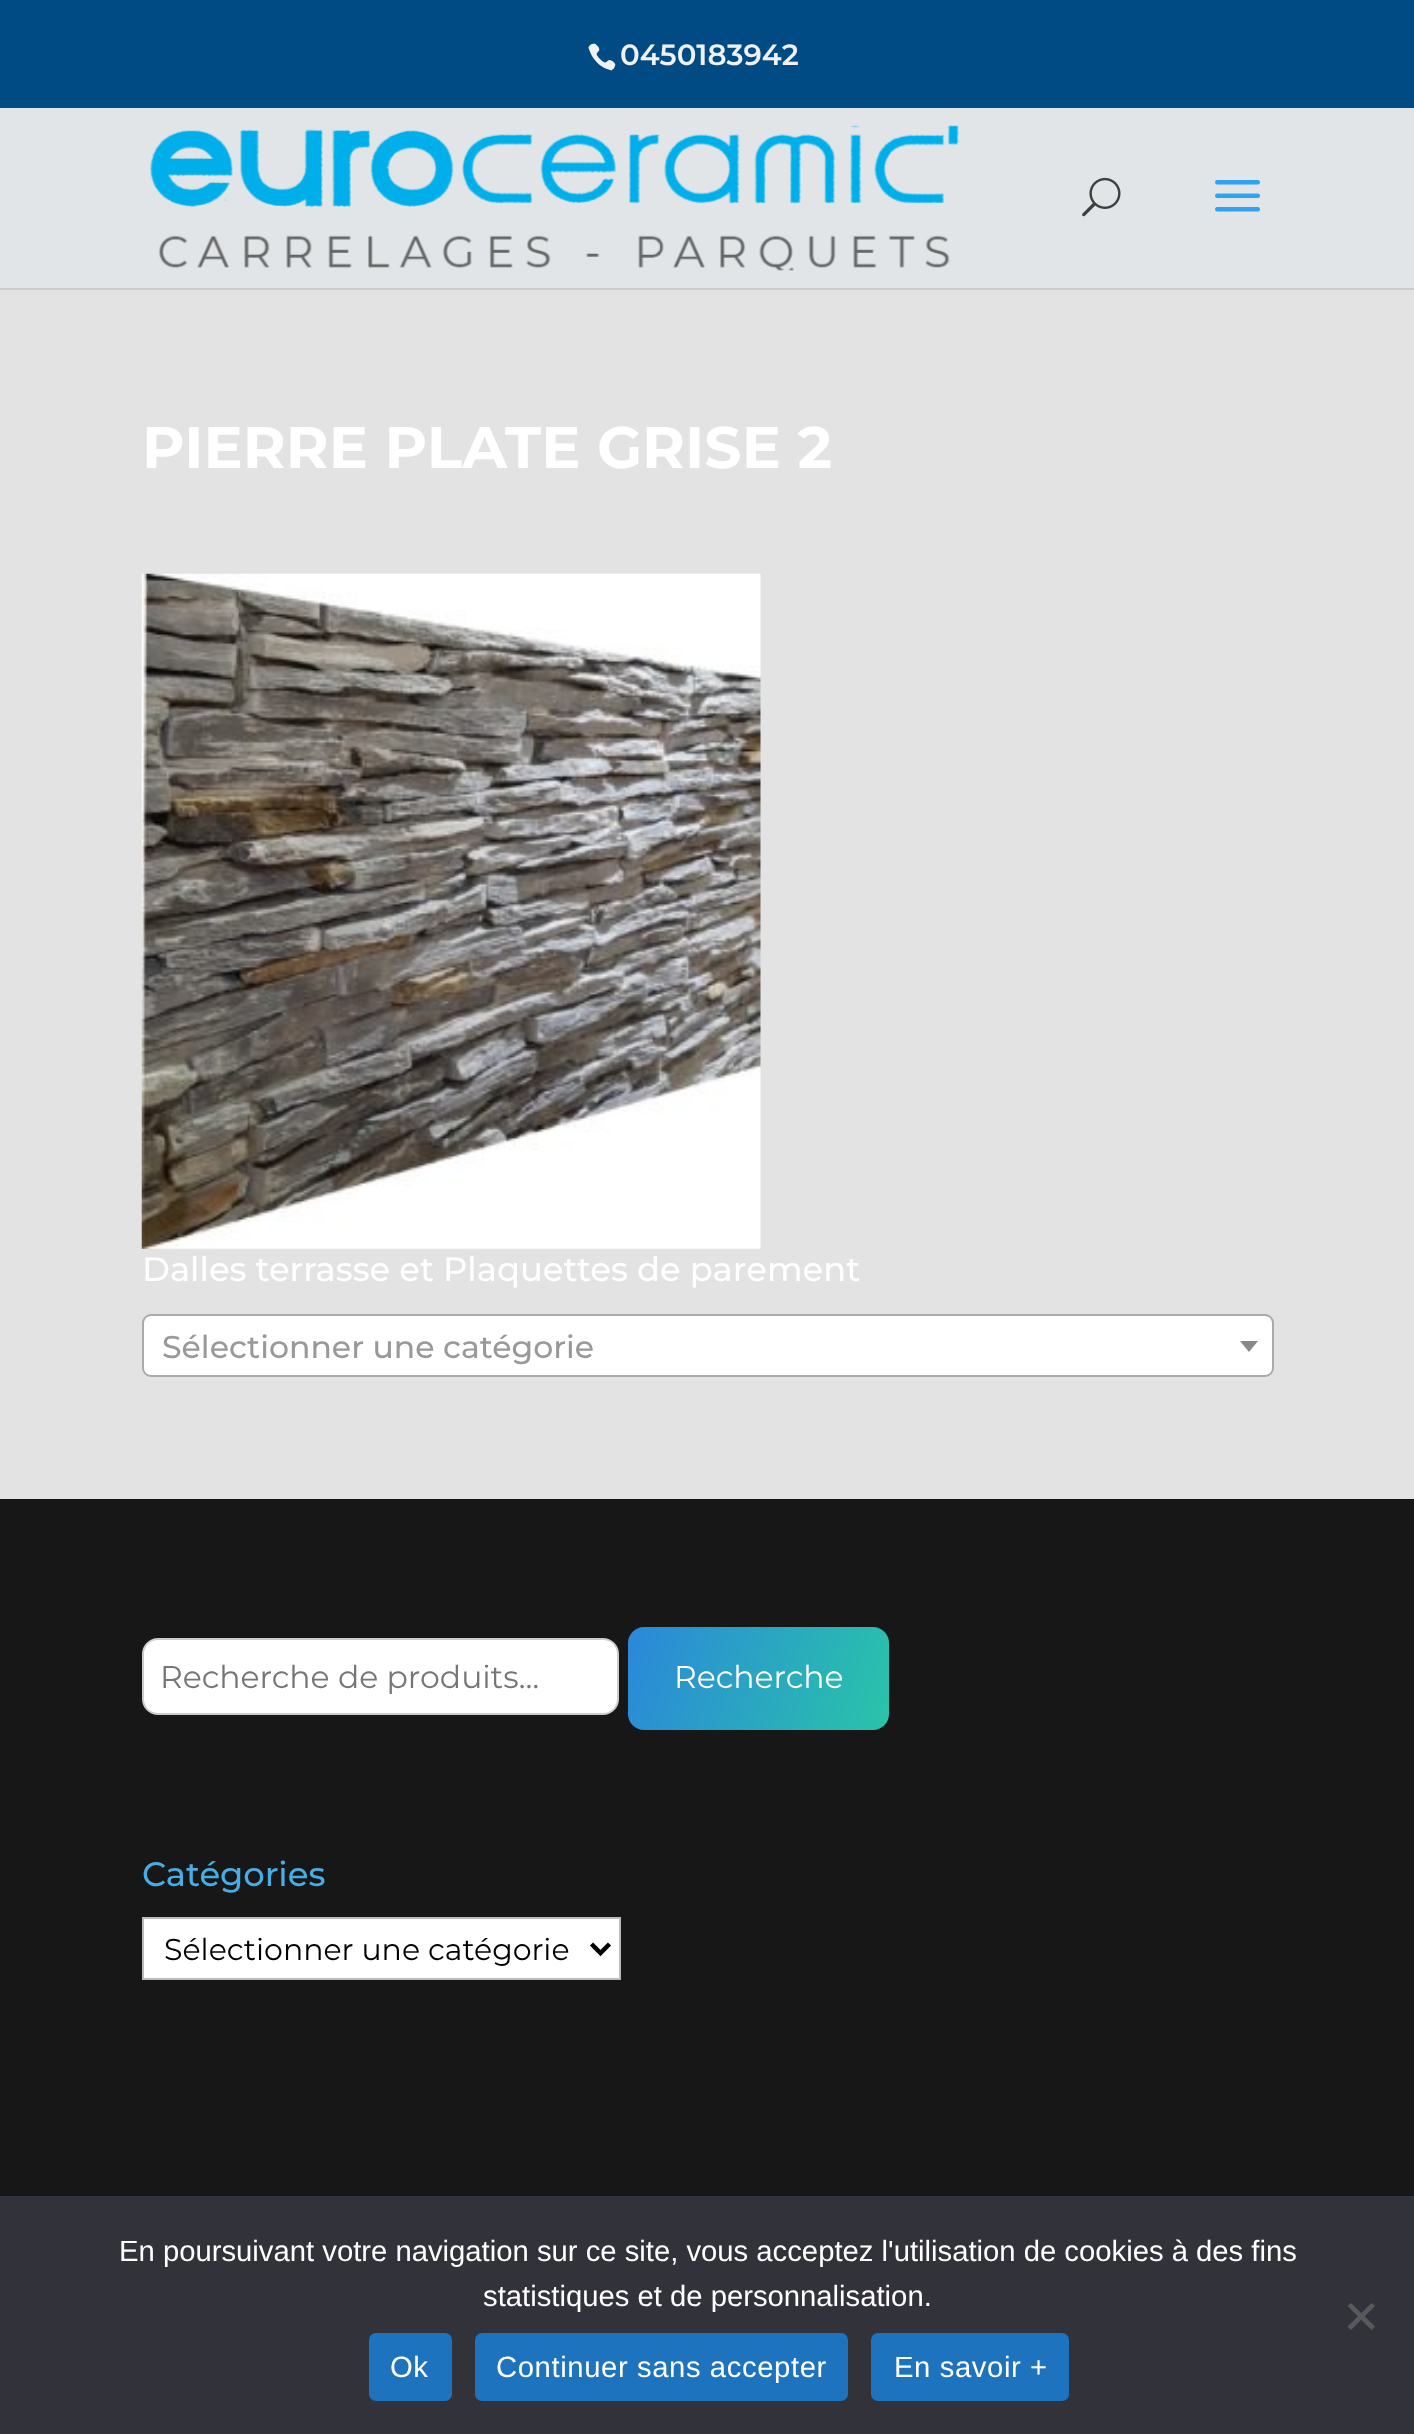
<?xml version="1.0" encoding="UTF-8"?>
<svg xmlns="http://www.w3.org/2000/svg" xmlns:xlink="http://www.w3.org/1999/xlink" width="1414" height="2434">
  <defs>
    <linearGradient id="g1" gradientUnits="userSpaceOnUse" x1="625" y1="1635" x2="891" y2="1722"><stop offset="0" stop-color="#2b87da" /><stop offset="1" stop-color="#29c4a9" /></linearGradient>
  </defs>
  <rect width="100%" height="100%" fill="#e3e3e3" />
  <rect width="1414" height="108" fill="#004b84" />
  <image x="588" y="43" width="28" height="28" xlink:href="image1.png" />
  <rect y="288" width="1414" height="2" fill="#cccccc" />
  <rect y="108" width="1414" height="180" fill="#e2e5e7" />
  <image x="150" y="125" width="809" height="146" xlink:href="image2.png" />
  <image x="1082" y="177" width="39" height="40" xlink:href="image3.png" />
  <image x="1215" y="180" width="45" height="32" xlink:href="image4.png" />
  <image x="141" y="573" width="620" height="676" xlink:href="image5.png" />
  <rect x="143" y="1315" width="1130" height="61" rx="8" fill="#ffffff" stroke="#aaaaaa" stroke-width="2" />
  <path d="M 1240 1341 h 18 l -9 11 z" fill="#888888" />
  <rect y="1499" width="1414" height="697" fill="#171717" />
  <rect x="143" y="1639" width="475" height="75" rx="15" fill="#ffffff" stroke="#cccccc" stroke-width="2" />
  <rect x="628" y="1627" width="261" height="103" rx="16" fill="url(#g1)" />
  <rect x="143" y="1918" width="477" height="61" fill="#ffffff" stroke="#bbbbbb" stroke-width="2" />
  <path d="M 591.5 1944 l 9 9 l 9 -9" fill="none" stroke="#000000" stroke-width="4.5" />
  <rect y="2196" width="1414" height="238" fill="#32323a" />
  <path d="M 1371.5 2303 l 3.5 3 l -24 24 l -3.5 -3.5 z" fill="#59595d" />
  <path d="M 1347.5 2306 l 3.5 -3 l 24 23.5 l -3.5 3.5 z" fill="#59595d" />
  <rect x="369" y="2333" width="83" height="68" rx="7" fill="#1e73be" />
  <rect x="475" y="2333" width="373" height="68" rx="7" fill="#1e73be" />
  <rect x="871" y="2333" width="198" height="68" rx="7" fill="#1e73be" />
  <text x="620" y="65" style="font-family: 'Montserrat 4'; font-size: 29.25px; font-weight: 100; fill: #eff1f3">0450183942</text>
  <text x="142" y="468" style="font-family: Montserrat; font-size: 58.5px; font-weight: 100; fill: #ffffff">PIERRE PLATE GRISE 2</text>
  <text x="142" y="1281" style="font-family: 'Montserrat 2'; font-size: 33.75px; font-weight: 100; fill: #ffffff">Dalles terrasse et Plaquettes de parement</text>
  <text x="162" y="1358" style="font-family: 'Montserrat 2'; font-size: 31.5px; font-weight: 100; fill: #999999">Sélectionner une catégorie</text>
  <text x="160" y="1688" style="font-family: 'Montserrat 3'; font-size: 31.5px; font-weight: 100; fill: #757575">Recherche de produits…</text>
  <text x="674" y="1688" style="font-family: 'Montserrat 3'; font-size: 31.5px; font-weight: 100; fill: #ffffff">Recherche</text>
  <text x="142" y="1886" style="font-family: 'Montserrat 2'; font-size: 33.75px; font-weight: 100; fill: #47ade4">Catégories</text>
  <text x="164" y="1960" style="font-family: 'Montserrat 3'; font-size: 30px; font-weight: 100; fill: #000000">Sélectionner une catégorie</text>
  <text x="119" y="2261" style="font-family: Liberation Sans; font-size: 29.25px; fill: #ffffff">En poursuivant votre navigation sur ce site, vous acceptez l'utilisation de cookies à des fins</text>
  <text x="483" y="2306" style="font-family: Liberation Sans; font-size: 29.25px; fill: #ffffff">statistiques et de personnalisation.</text>
  <text x="390" y="2377" style="font-family: Liberation Sans; font-size: 29.25px; letter-spacing: 0.6px; fill: #ffffff">Ok</text>
  <text x="496" y="2377" style="font-family: Liberation Sans; font-size: 29.25px; letter-spacing: 0.6px; fill: #ffffff">Continuer sans accepter</text>
  <text x="894" y="2377" style="font-family: Liberation Sans; font-size: 29.25px; letter-spacing: 0.6px; fill: #ffffff">En savoir +</text>
</svg>
